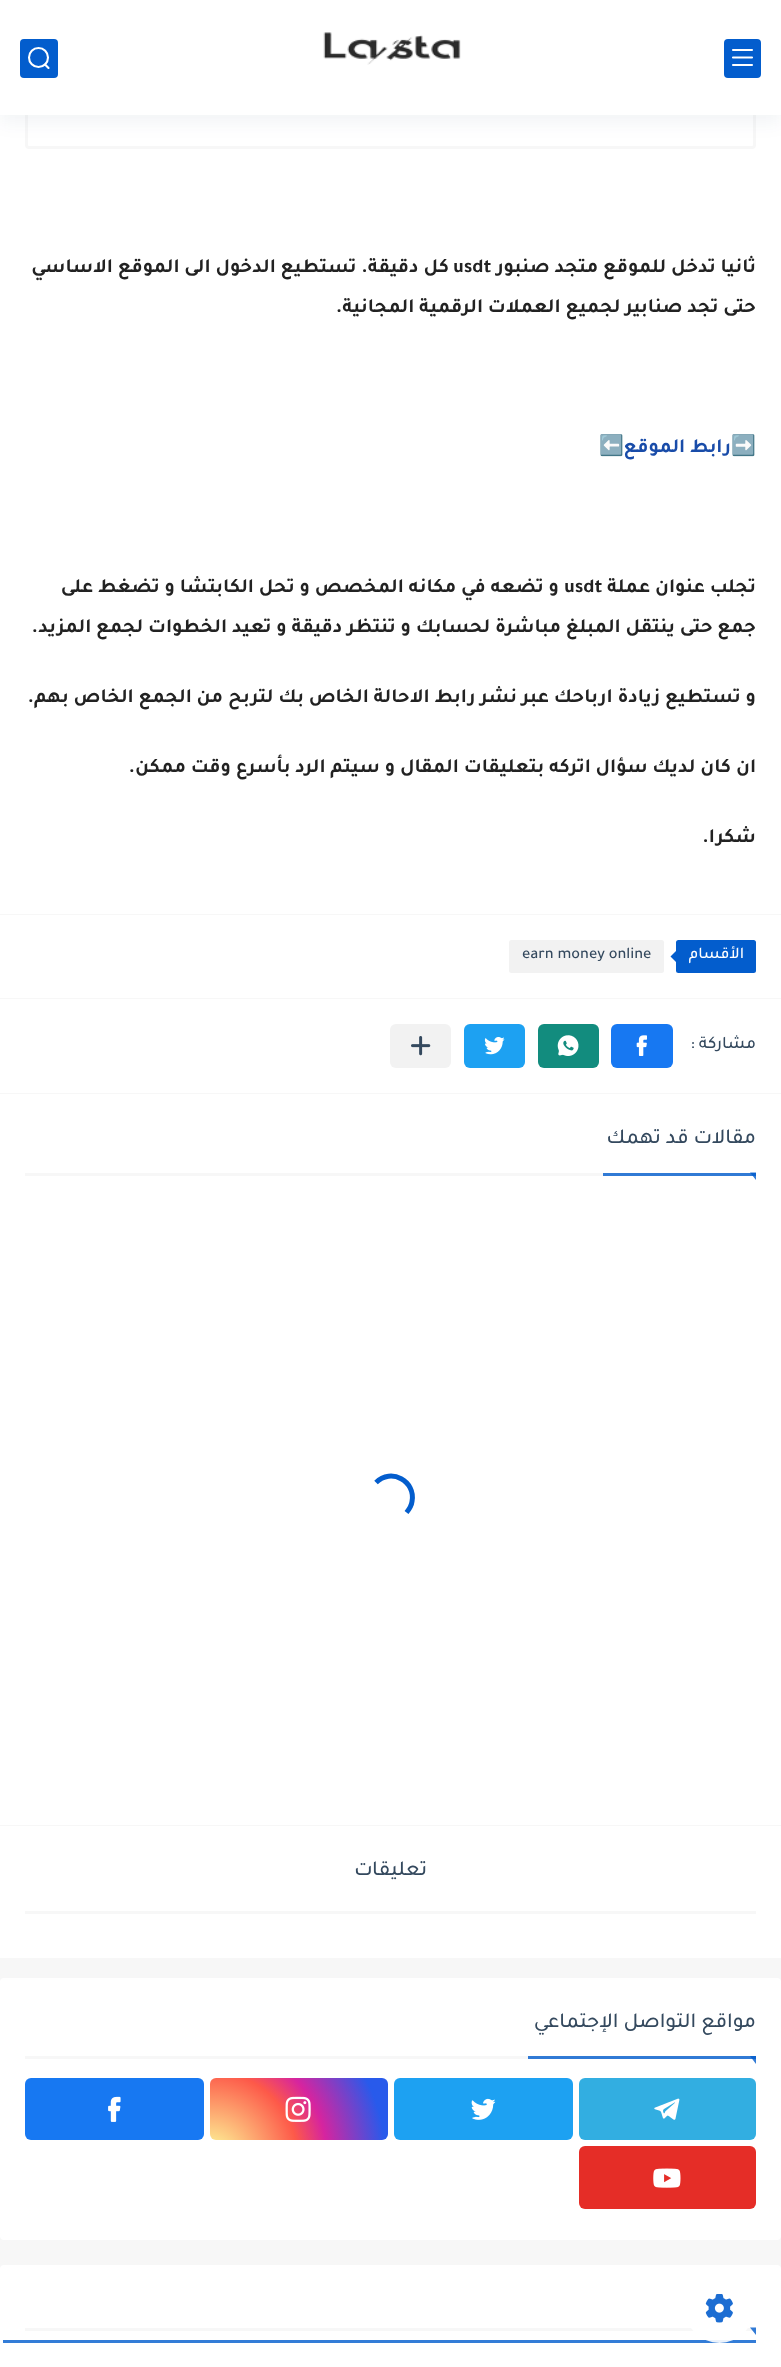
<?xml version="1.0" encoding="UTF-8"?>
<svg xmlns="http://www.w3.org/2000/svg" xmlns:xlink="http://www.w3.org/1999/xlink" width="781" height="2367">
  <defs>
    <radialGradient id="g1" gradientUnits="userSpaceOnUse" cx="210" cy="2159" r="195"><stop offset="0" stop-color="#fdf497" /><stop offset="0.05" stop-color="#fdf497" /><stop offset="0.45" stop-color="#fd5949" /><stop offset="0.6" stop-color="#d6249f" /><stop offset="0.9" stop-color="#285aeb" /></radialGradient>
  </defs>
  <rect width="100%" height="100%" fill="#f7f7f7" />
  <rect y="115" width="781" height="799" fill="#ffffff" />
  <rect x="26.5" y="-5.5" width="728" height="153" rx="2.5" fill="none" stroke="#f7f7f7" stroke-width="3" />
  <rect y="8" width="781" height="115" fill="#09204c" fill-opacity="0.05" filter="blur(9px)" />
  <rect width="781" height="115" fill="#ffffff" />
  <rect x="724" y="39" width="37" height="39" rx="4" fill="#035dcd" />
  <path d="M 733 57.5 h 19 m -19 -7.5 h 19 m -19 15 h 19" fill="none" stroke="#ffffff" stroke-width="2.1" stroke-linecap="round" stroke-linejoin="round" />
  <image x="323" y="32" width="138" height="33" xlink:href="image1.png" />
  <rect x="20" y="39" width="38" height="39" rx="4" fill="#035dcd" />
  <circle cx="38.5" cy="57.5" r="9.5" fill="none" stroke="#ffffff" stroke-width="2.1" />
  <path d="M 45 64.5 l 3.5 3.5" fill="none" stroke="#ffffff" stroke-width="2.1" stroke-linecap="round" stroke-linejoin="round" />
  <rect y="915" width="781" height="83" fill="#ffffff" />
  <rect x="676" y="940" width="80" height="33" rx="2.5" fill="#035dcd" />
  <path d="M 676 951 l 5 5.5 l -5 5.5 l -5.5 -5.5 z" fill="#035dcd" />
  <rect x="509" y="940" width="155" height="33" rx="2.5" fill="#f2f2f2" />
  <rect y="999" width="781" height="94" fill="#ffffff" />
  <rect x="611" y="1024" width="62" height="44" rx="6" fill="#1778f2" />
  <image x="636" y="1035" width="11" height="21" xlink:href="image2.png" />
  <rect x="538" y="1024" width="61" height="44" rx="6" fill="#128c7e" />
  <image x="557" y="1035" width="22" height="21" xlink:href="image3.png" />
  <rect x="464" y="1024" width="61" height="44" rx="6" fill="#1da1f2" />
  <image x="484" y="1037" width="21" height="18" xlink:href="image4.png" />
  <rect x="390" y="1024" width="61" height="44" rx="6" fill="#f2f2f2" />
  <image x="411" y="1036" width="20" height="20" xlink:href="image5.png" />
  <rect y="1094" width="781" height="731" fill="#ffffff" />
  <rect x="25" y="1173" width="731" height="3" fill="#f7f7f7" />
  <path d="M 750 1172.5 h 6 v 7.5 z" fill="#035dcd" fill-opacity="0.81" />
  <rect x="603" y="1173" width="153" height="3" fill="#035dcd" fill-opacity="0.81" />
  <path d="M 376 1482.5 c 15 -15 40 -1.5 36 19 c -0.5 4.5 -3 8 -5.5 11" fill="none" stroke="#035dcd" stroke-width="5" />
  <rect y="1826" width="781" height="132" fill="#ffffff" />
  <rect x="25" y="1911" width="731" height="3" fill="#f7f7f7" />
  <rect y="1978" width="781" height="262" rx="4" fill="#ffffff" />
  <rect x="25" y="2056" width="731" height="3" fill="#f7f7f7" />
  <path d="M 750 2056 h 6 v 8 z" fill="#035dcd" fill-opacity="0.81" />
  <rect x="528" y="2056" width="228" height="3" fill="#035dcd" fill-opacity="0.81" />
  <rect x="579" y="2078" width="177" height="62" rx="6" fill="#32aee1" />
  <image x="654" y="2098" width="26" height="22" xlink:href="image6.png" />
  <rect x="394" y="2078" width="179" height="62" rx="6" fill="#1da1f2" />
  <image x="471" y="2098" width="25" height="22" xlink:href="image7.png" />
  <rect x="210" y="2078" width="178" height="62" rx="6" fill="url(#g1)" />
  <image x="285" y="2096" width="26" height="26" xlink:href="image8.png" />
  <rect x="25" y="2078" width="179" height="62" rx="6" fill="#1778f2" />
  <image x="108" y="2096" width="13" height="26" xlink:href="image9.png" />
  <rect x="579" y="2146" width="177" height="63" rx="6" fill="#e52d27" />
  <image x="653" y="2168" width="28" height="20" xlink:href="image10.png" />
  <rect y="2265" width="781" height="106" rx="4" fill="#ffffff" />
  <rect x="25" y="2328" width="731" height="3" fill="#f7f7f7" />
  <path d="M 750 2327.5 h 6 v 7.5 z" fill="#035dcd" fill-opacity="0.81" />
  <rect x="3" y="2340" width="753" height="3" fill="#337cd7" />
  <circle cx="719.5" cy="2308.5" r="34.5" fill="#ffffff" fill-opacity="0.9" />
  <image x="705" y="2294" width="28" height="29" xlink:href="image11.png" />
  <text x="756" y="272" style="font-family: Tajawal; font-size: 20px; font-weight: bold; direction: rtl; fill: #222222">ثانيا تدخل للموقع متجد صنبور</text>
  <text x="453" y="272" style="font-family: Tajawal; font-size: 20px; font-weight: bold; fill: #222222">usdt</text>
  <text x="449" y="272" style="font-family: Tajawal; font-size: 20px; font-weight: bold; direction: rtl; fill: #222222">كل دقيقة. تستطيع الدخول الى الموقع الاساسي</text>
  <text x="756" y="312" style="font-family: Tajawal; font-size: 20px; font-weight: bold; direction: rtl; fill: #222222">حتى تجد صنابير لجميع العملات الرقمية المجانية.</text>
  <text x="731" y="452" style="font-family: Noto Color Emoji; font-size: 20px; font-weight: bold; fill: #222222">➡️</text>
  <text x="731" y="452" style="font-family: Tajawal; font-size: 20px; font-weight: bold; direction: rtl; fill: #194ca9">رابط الموقع</text>
  <text x="599" y="452" style="font-family: Noto Color Emoji; font-size: 20px; font-weight: bold; fill: #222222">⬅️</text>
  <text x="756" y="592" style="font-family: Tajawal; font-size: 20px; font-weight: bold; direction: rtl; fill: #222222">تجلب عنوان عملة</text>
  <text x="564" y="592" style="font-family: Tajawal; font-size: 20px; font-weight: bold; fill: #222222">usdt</text>
  <text x="559" y="592" style="font-family: Tajawal; font-size: 20px; font-weight: bold; direction: rtl; fill: #222222">و تضعه في مكانه المخصص و تحل الكابتشا و تضغط على</text>
  <text x="756" y="632" style="font-family: Tajawal; font-size: 20px; font-weight: bold; direction: rtl; fill: #222222">جمع حتى ينتقل المبلغ مباشرة لحسابك و تنتظر دقيقة و تعيد الخطوات لجمع المزيد.</text>
  <text x="756" y="702" style="font-family: Tajawal; font-size: 20px; font-weight: bold; direction: rtl; fill: #222222">و تستطيع زيادة ارباحك عبر نشر رابط الاحالة الخاص بك لتربح من الجمع الخاص بهم.</text>
  <text x="756" y="772" style="font-family: Tajawal; font-size: 20px; font-weight: bold; direction: rtl; fill: #222222">ان كان لديك سؤال اتركه بتعليقات المقال و سيتم الرد بأسرع وقت ممكن.</text>
  <text x="756" y="842" style="font-family: Tajawal; font-size: 20px; font-weight: bold; direction: rtl; fill: #222222">شكرا.</text>
  <text x="744" y="958" style="font-family: Tajawal; font-size: 16.25px; font-weight: 500; direction: rtl; fill: #ffffff">الأقسام</text>
  <text x="522" y="958" style="font-family: Tajawal; font-size: 16.25px; font-weight: 500; fill: #34495e">earn money online</text>
  <text x="756" y="1048" style="font-family: Tajawal; font-size: 17.5px; font-weight: 500; direction: rtl; fill: #34495e">مشاركة :</text>
  <text x="756" y="1143" style="font-family: Tajawal; font-size: 21.25px; font-weight: 500; direction: rtl; fill: #34495e">مقالات قد تهمك</text>
  <text x="427" y="1875" style="font-family: Tajawal; font-size: 21.25px; font-weight: 500; direction: rtl; fill: #34495e">تعليقات</text>
  <text x="756" y="2027" style="font-family: Tajawal; font-size: 21.25px; font-weight: 500; direction: rtl; fill: #34495e">مواقع التواصل الإجتماعي</text>
</svg>
